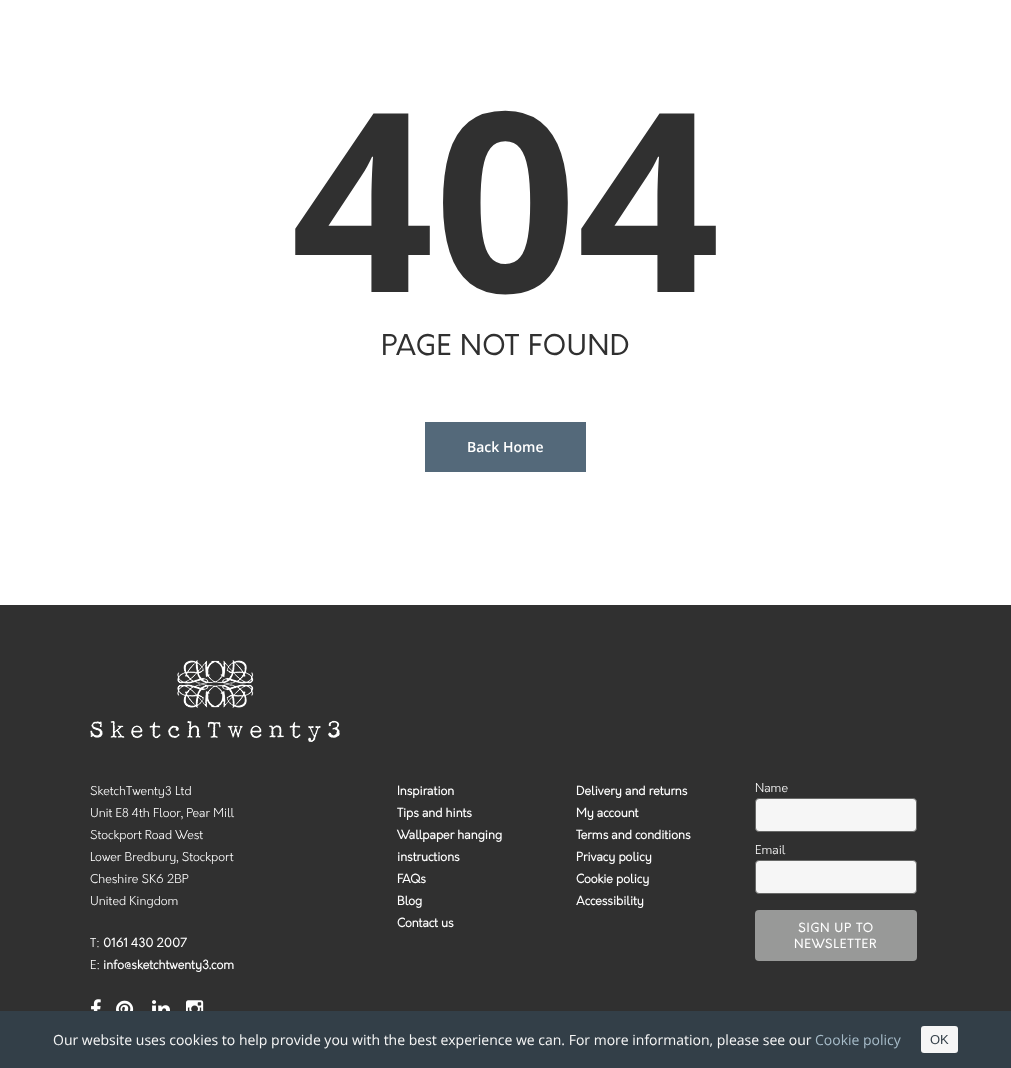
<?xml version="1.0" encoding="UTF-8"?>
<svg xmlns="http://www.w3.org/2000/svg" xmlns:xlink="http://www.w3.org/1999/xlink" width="1011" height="1068">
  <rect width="100%" height="100%" fill="#ffffff" />
  <rect x="425" y="422" width="161" height="50" fill="#54697a" />
  <rect y="605" width="1011" height="406" fill="#303030" />
  <image x="90" y="660" width="250" height="82" xlink:href="image1.png" />
  <image x="91" y="999" width="10" height="12" xlink:href="image2.png" />
  <image x="116" y="1000" width="18" height="11" xlink:href="image3.png" />
  <image x="152" y="1000" width="18" height="11" xlink:href="image4.png" />
  <image x="186" y="1000" width="18" height="11" xlink:href="image5.png" />
  <rect x="755.5" y="798.5" width="161" height="33" rx="3.5" fill="#f6f6f6" stroke="#686968" />
  <rect x="755.5" y="860.5" width="161" height="33" rx="3.5" fill="#f6f6f6" stroke="#686968" />
  <rect x="755" y="910" width="162" height="51" rx="4" fill="#989998" />
  <rect y="1011" width="1011" height="57" fill="#333f48" />
  <rect x="921" y="1026" width="37" height="27" rx="3" fill="#f6f6f6" />
  <text x="291" y="292" style="font-family: Open Sans; font-size: 250px; font-weight: bold; fill: #303030">404</text>
  <text x="381" y="355" style="font-family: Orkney; font-size: 28px; letter-spacing: 0.5px; fill: #303030">PAGE NOT FOUND</text>
  <text x="467" y="452" style="font-family: Open Sans; font-size: 14px; font-weight: 600; fill: #ffffff">Back Home</text>
  <text x="90" y="795" style="font-family: Orkney; font-size: 12px; font-weight: 300; fill: #ffffff">SketchTwenty3 Ltd</text>
  <text x="90" y="817" style="font-family: Orkney; font-size: 12px; font-weight: 300; fill: #ffffff">Unit E8 4th Floor, Pear Mill</text>
  <text x="90" y="839" style="font-family: Orkney; font-size: 12px; font-weight: 300; fill: #ffffff">Stockport Road West</text>
  <text x="90" y="861" style="font-family: Orkney; font-size: 12px; font-weight: 300; fill: #ffffff">Lower Bredbury, Stockport</text>
  <text x="90" y="883" style="font-family: Orkney; font-size: 12px; font-weight: 300; fill: #ffffff">Cheshire SK6 2BP</text>
  <text x="90" y="905" style="font-family: Orkney; font-size: 12px; font-weight: 300; fill: #ffffff">United Kingdom</text>
  <text x="90" y="947" style="font-family: Orkney; font-size: 12px; font-weight: 300; fill: #ffffff">T:</text>
  <text x="103" y="947" style="font-family: Orkney; font-size: 12px; font-weight: bold; fill: #ffffff">0161 430 2007</text>
  <text x="90" y="969" style="font-family: Orkney; font-size: 12px; font-weight: 300; fill: #ffffff">E:</text>
  <text x="103" y="969" style="font-family: Orkney; font-size: 12px; font-weight: bold; fill: #ffffff">info@sketchtwenty3.com</text>
  <text x="397" y="795" style="font-family: Orkney; font-size: 12px; font-weight: bold; fill: #ffffff">Inspiration</text>
  <text x="397" y="817" style="font-family: Orkney; font-size: 12px; font-weight: bold; fill: #ffffff">Tips and hints</text>
  <text x="397" y="839" style="font-family: Orkney; font-size: 12px; font-weight: bold; fill: #ffffff">Wallpaper hanging</text>
  <text x="397" y="861" style="font-family: Orkney; font-size: 12px; font-weight: bold; fill: #ffffff">instructions</text>
  <text x="397" y="883" style="font-family: Orkney; font-size: 12px; font-weight: bold; fill: #ffffff">FAQs</text>
  <text x="397" y="905" style="font-family: Orkney; font-size: 12px; font-weight: bold; fill: #ffffff">Blog</text>
  <text x="397" y="927" style="font-family: Orkney; font-size: 12px; font-weight: bold; fill: #ffffff">Contact us</text>
  <text x="576" y="795" style="font-family: Orkney; font-size: 12px; font-weight: bold; fill: #ffffff">Delivery and returns</text>
  <text x="576" y="817" style="font-family: Orkney; font-size: 12px; font-weight: bold; fill: #ffffff">My account</text>
  <text x="576" y="839" style="font-family: Orkney; font-size: 12px; font-weight: bold; fill: #ffffff">Terms and conditions</text>
  <text x="576" y="861" style="font-family: Orkney; font-size: 12px; font-weight: bold; fill: #ffffff">Privacy policy</text>
  <text x="576" y="883" style="font-family: Orkney; font-size: 12px; font-weight: bold; fill: #ffffff">Cookie policy</text>
  <text x="576" y="905" style="font-family: Orkney; font-size: 12px; font-weight: bold; fill: #ffffff">Accessibility</text>
  <text x="755" y="792" style="font-family: Orkney; font-size: 12px; font-weight: 300; fill: #ffffff">Name</text>
  <text x="755" y="854" style="font-family: Orkney; font-size: 12px; font-weight: 300; fill: #ffffff">Email</text>
  <text x="798" y="932" style="font-family: Orkney; font-size: 12px; font-weight: bold; letter-spacing: 1px; fill: #ffffff">SIGN UP TO</text>
  <text x="794" y="948" style="font-family: Orkney; font-size: 12px; font-weight: bold; letter-spacing: 1px; fill: #ffffff">NEWSLETTER</text>
  <text x="53" y="1045" style="font-family: Open Sans; font-size: 14px; fill: #f6f6f6">Our website uses cookies to help provide you with the best experience we can. For more information, please see our</text>
  <text x="815" y="1045" style="font-family: Open Sans; font-size: 14px; fill: #a6bbc8">Cookie policy</text>
  <text x="930" y="1044" style="font-family: Liberation Sans; font-size: 13px; fill: #333f48">OK</text>
</svg>
